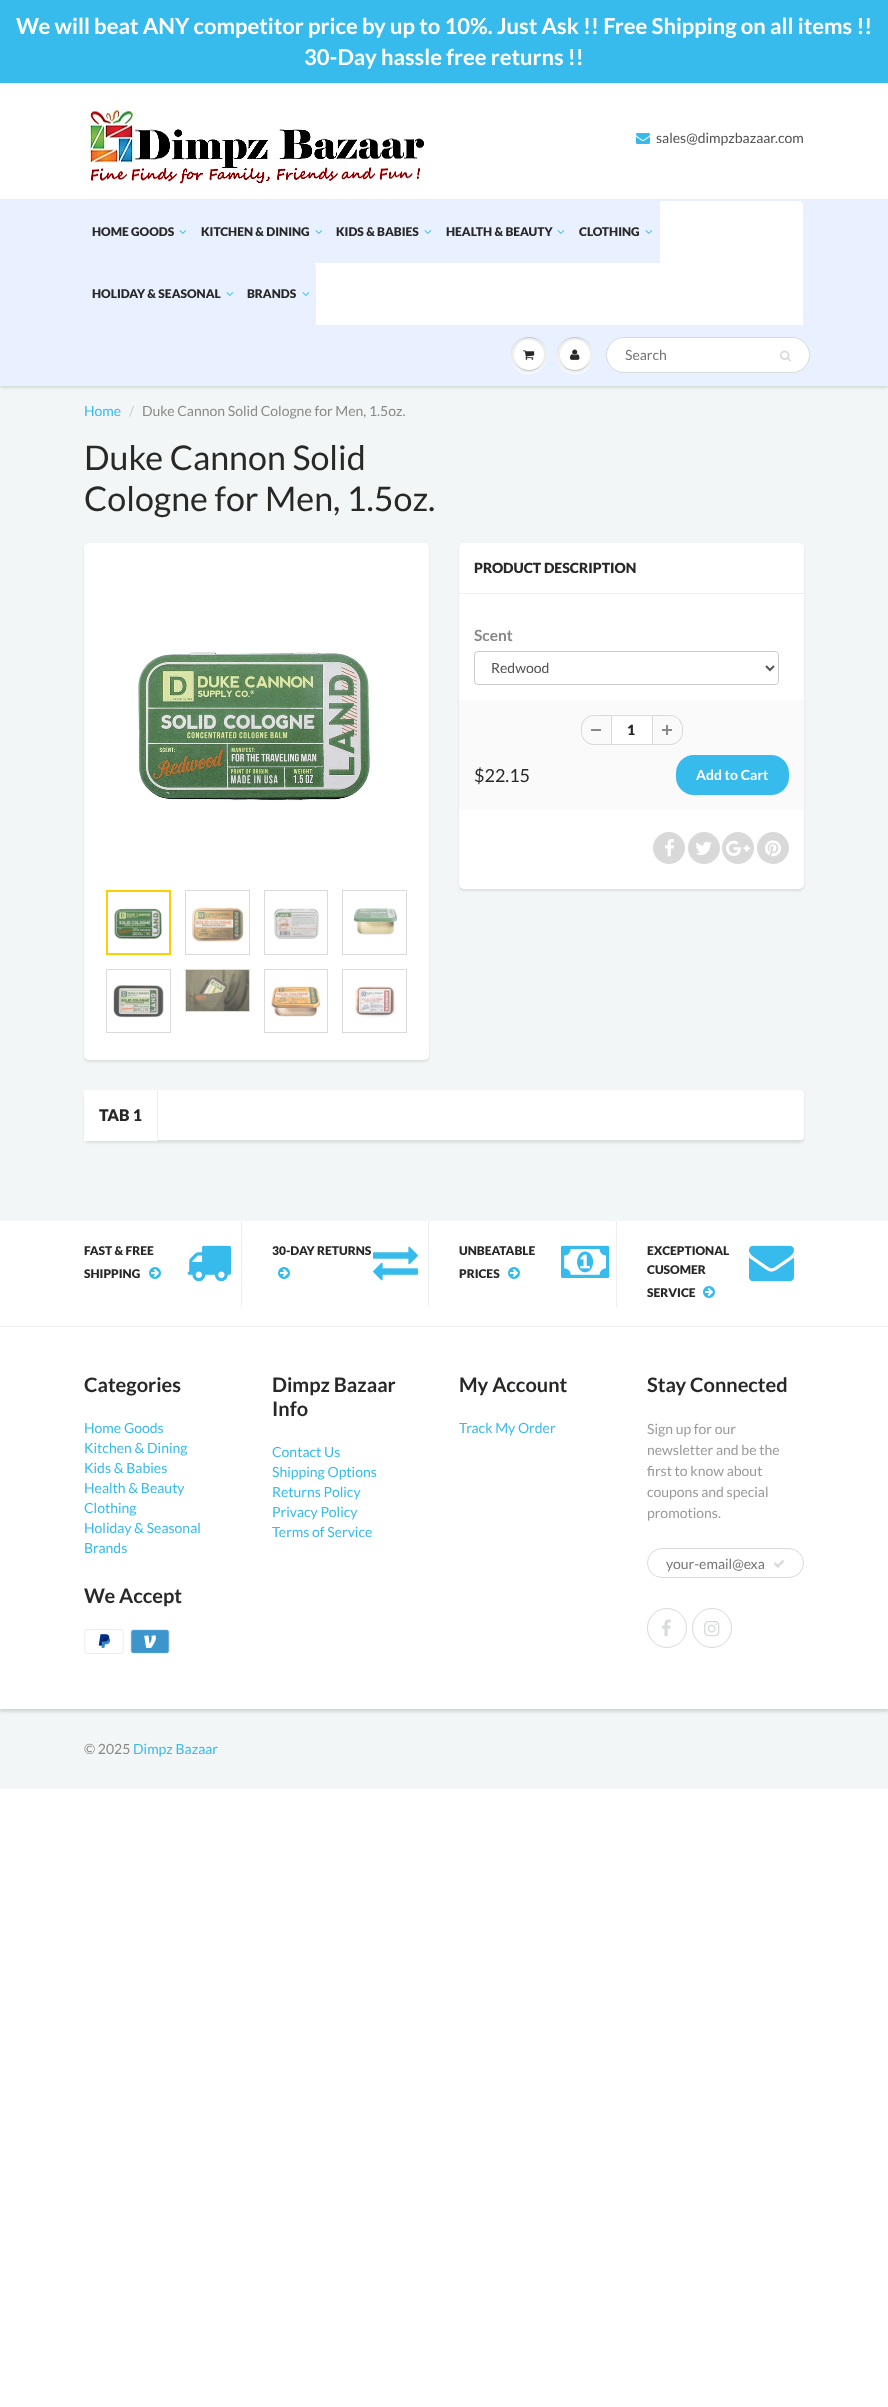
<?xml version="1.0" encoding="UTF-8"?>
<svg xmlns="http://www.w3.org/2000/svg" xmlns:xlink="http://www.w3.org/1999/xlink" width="888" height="2407">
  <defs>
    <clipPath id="clip1"><rect x="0" y="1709" width="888" height="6" /></clipPath>
  </defs>
  <rect width="100%" height="100%" fill="#ffffff" />
  <rect width="888" height="83" fill="#37bbec" />
  <image x="86" y="108" width="338" height="76" xlink:href="image1.png" />
  <image x="636" y="133" width="14" height="11" xlink:href="image2.png" />
  <rect y="386" width="888" height="835" fill="#f3f6f6" />
  <rect y="201" width="888" height="187" fill="#0b191c" fill-opacity="0.12" filter="blur(1px)" />
  <rect y="200" width="888" height="186" fill="#e9f0ff" />
  <rect y="199" width="888" height="1" fill="#ecefef" />
  <path d="M 89 201 h 710 c 2 0 4 2 4 4 v 120 h -718 v -120 c 0 -2 2 -4 4 -4 z" fill="#ffffff" />
  <path d="M 89 201 h 105 v 62 h -109 v -58 c 0 -2 2 -4 4 -4 z" fill="#e9f0ff" />
  <image x="179" y="230" width="8" height="4" xlink:href="image3.png" />
  <rect x="194" y="201" width="466" height="62" fill="#e9f0ff" />
  <image x="315" y="230" width="8" height="4" xlink:href="image3.png" />
  <image x="424" y="230" width="8" height="4" xlink:href="image3.png" />
  <image x="557" y="230" width="8" height="4" xlink:href="image3.png" />
  <image x="645" y="230" width="8" height="4" xlink:href="image3.png" />
  <rect x="85" y="263" width="155" height="62" fill="#e9f0ff" />
  <image x="226" y="292" width="8" height="4" xlink:href="image3.png" />
  <path d="M 240 263 h 72 c 2 0 4 2 4 4 v 58 h -76 z" fill="#e9f0ff" />
  <image x="302" y="292" width="8" height="4" xlink:href="image3.png" />
  <path d="M 511 355.5 c 0 3.5 1 7.5 3 10.5 c 10 15 33.5 7.5 33 -10.5 c -0.5 9.5 -8 17.5 -18 17.5 c -10 0 -17.5 -8 -18 -17.5 z" fill="#ffffff" />
  <circle cx="529" cy="355" r="18" fill="#edefef" />
  <path d="M 529 338 c 12 0 18 8.5 18 17.5 c 0 -3.5 -1 -7.5 -3 -10.5 c -10 -15 -33.5 -7.5 -33 10.5 c 0 -9 6 -17.5 18 -17.5 z" fill="#c9cbcb" />
  <path d="M 544 355.5 c -0.5 19 -29.5 19 -30 0 c 0 3 1 6.5 2.5 9 c 8.5 12.5 28 6 27.5 -9 z" fill="#c9cbcb" />
  <circle cx="529" cy="355" r="15" fill="#ffffff" />
  <path d="M 529 341 c 10 0 15 7 15 14.5 c 0 -3 -1 -6.5 -2.5 -9 c -8.5 -12.5 -28 -6 -27.5 9 c 0 -7.5 5 -14.5 15 -14.5 z" fill="#ffffff" />
  <image x="523" y="350" width="12" height="10" xlink:href="image4.png" />
  <path d="M 557 355.5 c -0.5 18 23 25.5 33 10.5 c 2 -3 3 -7 3 -10.5 c -0.5 9.5 -8 17.5 -18 17.5 c -10 0 -17.5 -8 -18 -17.5 z" fill="#ffffff" />
  <circle cx="575" cy="355" r="18" fill="#edefef" />
  <path d="M 575 338 c 12 0 18 8.5 18 17.5 c 0 -3.5 -1 -7.5 -3 -10.5 c -10 -15 -33.5 -7.5 -33 10.5 c 0 -9 6 -17.5 18 -17.5 z" fill="#c9cbcb" />
  <path d="M 590 355.5 c -0.5 19 -29.5 19 -30 0 c -0.5 15 19 21.5 27.5 9 c 1.5 -2.5 2.5 -6 2.5 -9 z" fill="#c9cbcb" />
  <circle cx="575" cy="355" r="15" fill="#ffffff" />
  <path d="M 575 341 c 10 0 15 7 15 14.5 c 0 -3 -1 -6.5 -2.5 -9 c -8.5 -12.5 -28 -6 -27.5 9 c 0 -7.5 5 -14.5 15 -14.5 z" fill="#ffffff" />
  <image x="570" y="349" width="10" height="11" xlink:href="image5.png" />
  <rect x="606.5" y="337.5" width="203" height="35" rx="17.5" fill="#ffffff" stroke="#d7dbdb" />
  <image x="780" y="350" width="11" height="12" xlink:href="image6.png" />
  <rect x="84" y="545" width="345" height="517" rx="5" fill="#0b191c" fill-opacity="0.1" filter="blur(1px)" />
  <rect x="84" y="543" width="345" height="517" rx="5" fill="#ffffff" />
  <image x="138" y="652" width="233" height="149" xlink:href="image7.png" />
  <rect x="107" y="891" width="63" height="63" fill="none" stroke="#fbcf00" stroke-width="2" />
  <image x="114" y="908" width="48" height="32" xlink:href="image8.png" />
  <rect x="185.5" y="890.5" width="64" height="64" fill="none" stroke="#dbdbdb" />
  <image x="192" y="907" width="52" height="35" xlink:href="image9.png" />
  <rect x="264.5" y="890.5" width="63" height="64" fill="none" stroke="#dbdbdb" />
  <image x="274" y="908" width="46" height="32" xlink:href="image10.png" />
  <rect x="342.5" y="890.5" width="64" height="64" fill="none" stroke="#dbdbdb" />
  <image x="353" y="908" width="45" height="27" xlink:href="image11.png" />
  <rect x="106.5" y="969.5" width="64" height="63" fill="none" stroke="#dbdbdb" />
  <image x="113" y="985" width="51" height="33" xlink:href="image12.png" />
  <rect x="185.5" y="969.5" width="64" height="42" fill="none" stroke="#dbdbdb" />
  <image x="186" y="970" width="63" height="41" xlink:href="image13.png" />
  <rect x="264.5" y="969.5" width="63" height="63" fill="none" stroke="#dbdbdb" />
  <image x="271" y="986" width="50" height="31" xlink:href="image14.png" />
  <rect x="342.5" y="969.5" width="64" height="63" fill="none" stroke="#dbdbdb" />
  <image x="355" y="986" width="42" height="32" xlink:href="image15.png" />
  <rect x="459" y="545" width="345" height="346" rx="5" fill="#0b191c" fill-opacity="0.1" filter="blur(1px)" />
  <rect x="459" y="543" width="345" height="346" rx="5" fill="#ffffff" />
  <rect x="459" y="593" width="345" height="1" fill="#efefef" />
  <rect x="474.5" y="651.5" width="304" height="33" rx="3.5" fill="none" stroke="#cccccc" />
  <path d="M 766 666 l 4 4 l 4 -4" fill="none" stroke="#555555" stroke-width="2" />
  <rect x="459" y="700" width="345" height="110" fill="#fafafa" />
  <rect x="591" y="729" width="10" height="2" fill="#898989" />
  <path d="M 594 715 h 17 v 30 h -17 c -7 0 -13 -6 -13 -13 v -4 c 0 -7 6 -13 13 -13 z m 0 1 h 17 v 28 h -17 c -6.5 0 -12 -5.5 -12 -12 v -4 c 0 -6.5 5.5 -12 12 -12 z" fill="#d7dbdb" fill-rule="evenodd" />
  <rect x="611.5" y="715.5" width="41" height="29" fill="#ffffff" stroke="#d7dbdb" />
  <image x="662" y="725" width="10" height="10" xlink:href="image16.png" />
  <path d="M 653 715 h 17 c 7 0 13 6 13 13 v 4 c 0 7 -6 13 -13 13 h -17 z m 0 1 h 17 c 6.5 0 12 5.5 12 12 v 4 c 0 6.5 -5.5 12 -12 12 h -17 z" fill="#d7dbdb" fill-rule="evenodd" />
  <rect x="676" y="755" width="113" height="40" rx="18" fill="#37bbec" />
  <circle cx="669" cy="848" r="16" fill="#d9d9d9" />
  <image x="665" y="839" width="9" height="18" xlink:href="image17.png" />
  <circle cx="704" cy="848" r="16" fill="#d9d9d9" />
  <image x="696" y="841" width="16" height="14" xlink:href="image18.png" />
  <circle cx="738" cy="848" r="16" fill="#d9d9d9" />
  <image x="726" y="840" width="24" height="16" xlink:href="image19.png" />
  <circle cx="773" cy="848" r="16" fill="#d9d9d9" />
  <image x="765" y="840" width="16" height="17" xlink:href="image20.png" />
  <rect x="84" y="1092" width="720" height="51" rx="5" fill="#0b191c" fill-opacity="0.1" filter="blur(1px)" />
  <rect x="84" y="1090" width="720" height="51" rx="5" fill="#ffffff" />
  <rect x="158" y="1140" width="646" height="1" fill="#dddddd" />
  <rect x="84" y="1090" width="4" height="51" fill="#ffffff" />
  <path d="M 158 1090 v 51 l -1 -1 v -50 z" fill="#efefef" />
  <rect x="241" y="1221" width="1" height="86" fill="#ecefef" />
  <image x="149" y="1267" width="12" height="12" xlink:href="image21.png" />
  <image x="187" y="1245" width="44" height="37" xlink:href="image22.png" />
  <rect x="428" y="1221" width="1" height="86" fill="#ecefef" />
  <image x="278" y="1267" width="12" height="12" xlink:href="image21.png" />
  <image x="373" y="1246" width="45" height="35" xlink:href="image23.png" />
  <rect x="616" y="1221" width="1" height="86" fill="#ecefef" />
  <image x="508" y="1267" width="12" height="12" xlink:href="image21.png" />
  <image x="561" y="1245" width="49" height="33" xlink:href="image24.png" />
  <image x="703" y="1286" width="12" height="12" xlink:href="image21.png" />
  <image x="749" y="1245" width="45" height="37" xlink:href="image25.png" />
  <rect y="1709" width="888" height="80" fill="#f3f6f6" />
  <g clip-path="url(#clip1)">
    <rect y="1329" width="888" height="383" fill="#d1d7d7" filter="blur(1.5px)" />
  </g>
  <rect y="1326" width="888" height="1" fill="#ecefef" />
  <image x="84" y="1629" width="40" height="25" xlink:href="image26.png" />
  <image x="130" y="1629" width="40" height="25" xlink:href="image27.png" />
  <rect x="647.5" y="1548.5" width="156" height="29" rx="14.5" fill="none" stroke="#d7dbdb" />
  <image x="774" y="1560" width="10" height="8" xlink:href="image28.png" />
  <circle cx="667" cy="1628" r="19.5" fill="none" stroke="#d7dbdb" />
  <image x="662" y="1619" width="9" height="18" xlink:href="image29.png" />
  <circle cx="712" cy="1628" r="19.5" fill="none" stroke="#d7dbdb" />
  <image x="704" y="1620" width="16" height="17" xlink:href="image30.png" />
  <text x="16" y="34" style="font-family: Lato; font-size: 22px; font-weight: bold; fill: #ffffff">We will beat ANY competitor price by up to 10%. Just Ask !! Free Shipping on all items !!</text>
  <text x="304" y="65" style="font-family: Lato; font-size: 22px; font-weight: bold; fill: #ffffff">30-Day hassle free returns !!</text>
  <text x="656" y="143" style="font-family: Lato; font-size: 14px; fill: #525252">sales@dimpzbazaar.com</text>
  <text x="92" y="236" style="font-family: Lato; font-size: 12px; font-weight: 900; fill: #282827">HOME GOODS</text>
  <text x="201" y="236" style="font-family: Lato; font-size: 12px; font-weight: 900; fill: #282827">KITCHEN &amp; DINING</text>
  <text x="336" y="236" style="font-family: Lato; font-size: 12px; font-weight: 900; fill: #282827">KIDS &amp; BABIES</text>
  <text x="446" y="236" style="font-family: Lato; font-size: 12px; font-weight: 900; fill: #282827">HEALTH &amp; BEAUTY</text>
  <text x="579" y="236" style="font-family: Lato; font-size: 12px; font-weight: 900; fill: #282827">CLOTHING</text>
  <text x="92" y="298" style="font-family: Lato; font-size: 12px; font-weight: 900; fill: #282827">HOLIDAY &amp; SEASONAL</text>
  <text x="247" y="298" style="font-family: Lato; font-size: 12px; font-weight: 900; fill: #282827">BRANDS</text>
  <text x="625" y="360" style="font-family: Lato; font-size: 14px; fill: #757575">Search</text>
  <text x="84" y="416" style="font-family: Lato; font-size: 14px; fill: #37bbec">Home</text>
  <text x="129" y="416" style="font-family: Lato; font-size: 14px; fill: #cccccc">/</text>
  <text x="142" y="416" style="font-family: Lato; font-size: 14px; fill: #898989">Duke Cannon Solid Cologne for Men, 1.5oz.</text>
  <text x="84" y="470" style="font-family: Lato; font-size: 34px; fill: #282827">Duke Cannon Solid</text>
  <text x="84" y="511" style="font-family: Lato; font-size: 34px; fill: #282827">Cologne for Men, 1.5oz.</text>
  <text x="474" y="573" style="font-family: Lato; font-size: 14px; font-weight: 900; fill: #282827">PRODUCT DESCRIPTION</text>
  <text x="474" y="641" style="font-family: Lato; font-size: 15.5px; font-weight: bold; fill: #898989">Scent</text>
  <text x="491" y="673" style="font-family: Lato; font-size: 14px; fill: #525252">Redwood</text>
  <text x="627" y="735" style="font-family: Lato; font-size: 14px; font-weight: 900; fill: #282827">1</text>
  <text x="474" y="782" style="font-family: Lato; font-size: 18px; fill: #282827">$22.15</text>
  <text x="696" y="780" style="font-family: Lato; font-size: 14px; font-weight: bold; fill: #ffffff">Add to Cart</text>
  <text x="99" y="1121" style="font-family: Lato; font-size: 16px; font-weight: 900; fill: #282827">TAB 1</text>
  <text x="84" y="1255" style="font-family: Lato; font-size: 12px; font-weight: 900; fill: #282827">FAST &amp; FREE</text>
  <text x="84" y="1278" style="font-family: Lato; font-size: 12px; font-weight: 900; fill: #282827">SHIPPING</text>
  <text x="272" y="1255" style="font-family: Lato; font-size: 12px; font-weight: 900; fill: #282827">30-DAY RETURNS</text>
  <text x="459" y="1255" style="font-family: Lato; font-size: 12px; font-weight: 900; fill: #282827">UNBEATABLE</text>
  <text x="459" y="1278" style="font-family: Lato; font-size: 12px; font-weight: 900; fill: #282827">PRICES</text>
  <text x="647" y="1255" style="font-family: Lato; font-size: 12px; font-weight: 900; fill: #282827">EXCEPTIONAL</text>
  <text x="647" y="1274" style="font-family: Lato; font-size: 12px; font-weight: 900; fill: #282827">CUSOMER</text>
  <text x="647" y="1297" style="font-family: Lato; font-size: 12px; font-weight: 900; fill: #282827">SERVICE</text>
  <text x="84" y="1392" style="font-family: Lato; font-size: 20px; font-weight: bold; fill: #282827">Categories</text>
  <text x="84" y="1433" style="font-family: Lato; font-size: 14px; fill: #37bbec">Home Goods</text>
  <text x="84" y="1453" style="font-family: Lato; font-size: 14px; fill: #37bbec">Kitchen &amp; Dining</text>
  <text x="84" y="1473" style="font-family: Lato; font-size: 14px; fill: #37bbec">Kids &amp; Babies</text>
  <text x="84" y="1493" style="font-family: Lato; font-size: 14px; fill: #37bbec">Health &amp; Beauty</text>
  <text x="84" y="1513" style="font-family: Lato; font-size: 14px; fill: #37bbec">Clothing</text>
  <text x="84" y="1533" style="font-family: Lato; font-size: 14px; fill: #37bbec">Holiday &amp; Seasonal</text>
  <text x="84" y="1553" style="font-family: Lato; font-size: 14px; fill: #37bbec">Brands</text>
  <text x="272" y="1392" style="font-family: Lato; font-size: 20px; font-weight: bold; fill: #282827">Dimpz Bazaar</text>
  <text x="272" y="1416" style="font-family: Lato; font-size: 20px; font-weight: bold; fill: #282827">Info</text>
  <text x="272" y="1457" style="font-family: Lato; font-size: 14px; fill: #37bbec">Contact Us</text>
  <text x="272" y="1477" style="font-family: Lato; font-size: 14px; fill: #37bbec">Shipping Options</text>
  <text x="272" y="1497" style="font-family: Lato; font-size: 14px; fill: #37bbec">Returns Policy</text>
  <text x="272" y="1517" style="font-family: Lato; font-size: 14px; fill: #37bbec">Privacy Policy</text>
  <text x="272" y="1537" style="font-family: Lato; font-size: 14px; fill: #37bbec">Terms of Service</text>
  <text x="84" y="1603" style="font-family: Lato; font-size: 20px; font-weight: bold; fill: #282827">We Accept</text>
  <text x="459" y="1392" style="font-family: Lato; font-size: 20px; font-weight: bold; fill: #282827">My Account</text>
  <text x="459" y="1433" style="font-family: Lato; font-size: 14px; fill: #37bbec">Track My Order</text>
  <text x="647" y="1392" style="font-family: Lato; font-size: 20px; font-weight: bold; fill: #282827">Stay Connected</text>
  <text x="647" y="1434" style="font-family: Lato; font-size: 14px; fill: #9a9a9a">Sign up for our</text>
  <text x="647" y="1455" style="font-family: Lato; font-size: 14px; fill: #9a9a9a">newsletter and be the</text>
  <text x="647" y="1476" style="font-family: Lato; font-size: 14px; fill: #9a9a9a">first to know about</text>
  <text x="647" y="1497" style="font-family: Lato; font-size: 14px; fill: #9a9a9a">coupons and special</text>
  <text x="647" y="1518" style="font-family: Lato; font-size: 14px; fill: #9a9a9a">promotions.</text>
  <text x="666" y="1569" style="font-family: Lato; font-size: 14px; fill: #757575">your-email@exa</text>
  <text x="84" y="1754" style="font-family: Lato; font-size: 14px; fill: #898989">© 2025</text>
  <text x="133" y="1754" style="font-family: Lato; font-size: 14px; fill: #37bbec">Dimpz Bazaar</text>
</svg>
